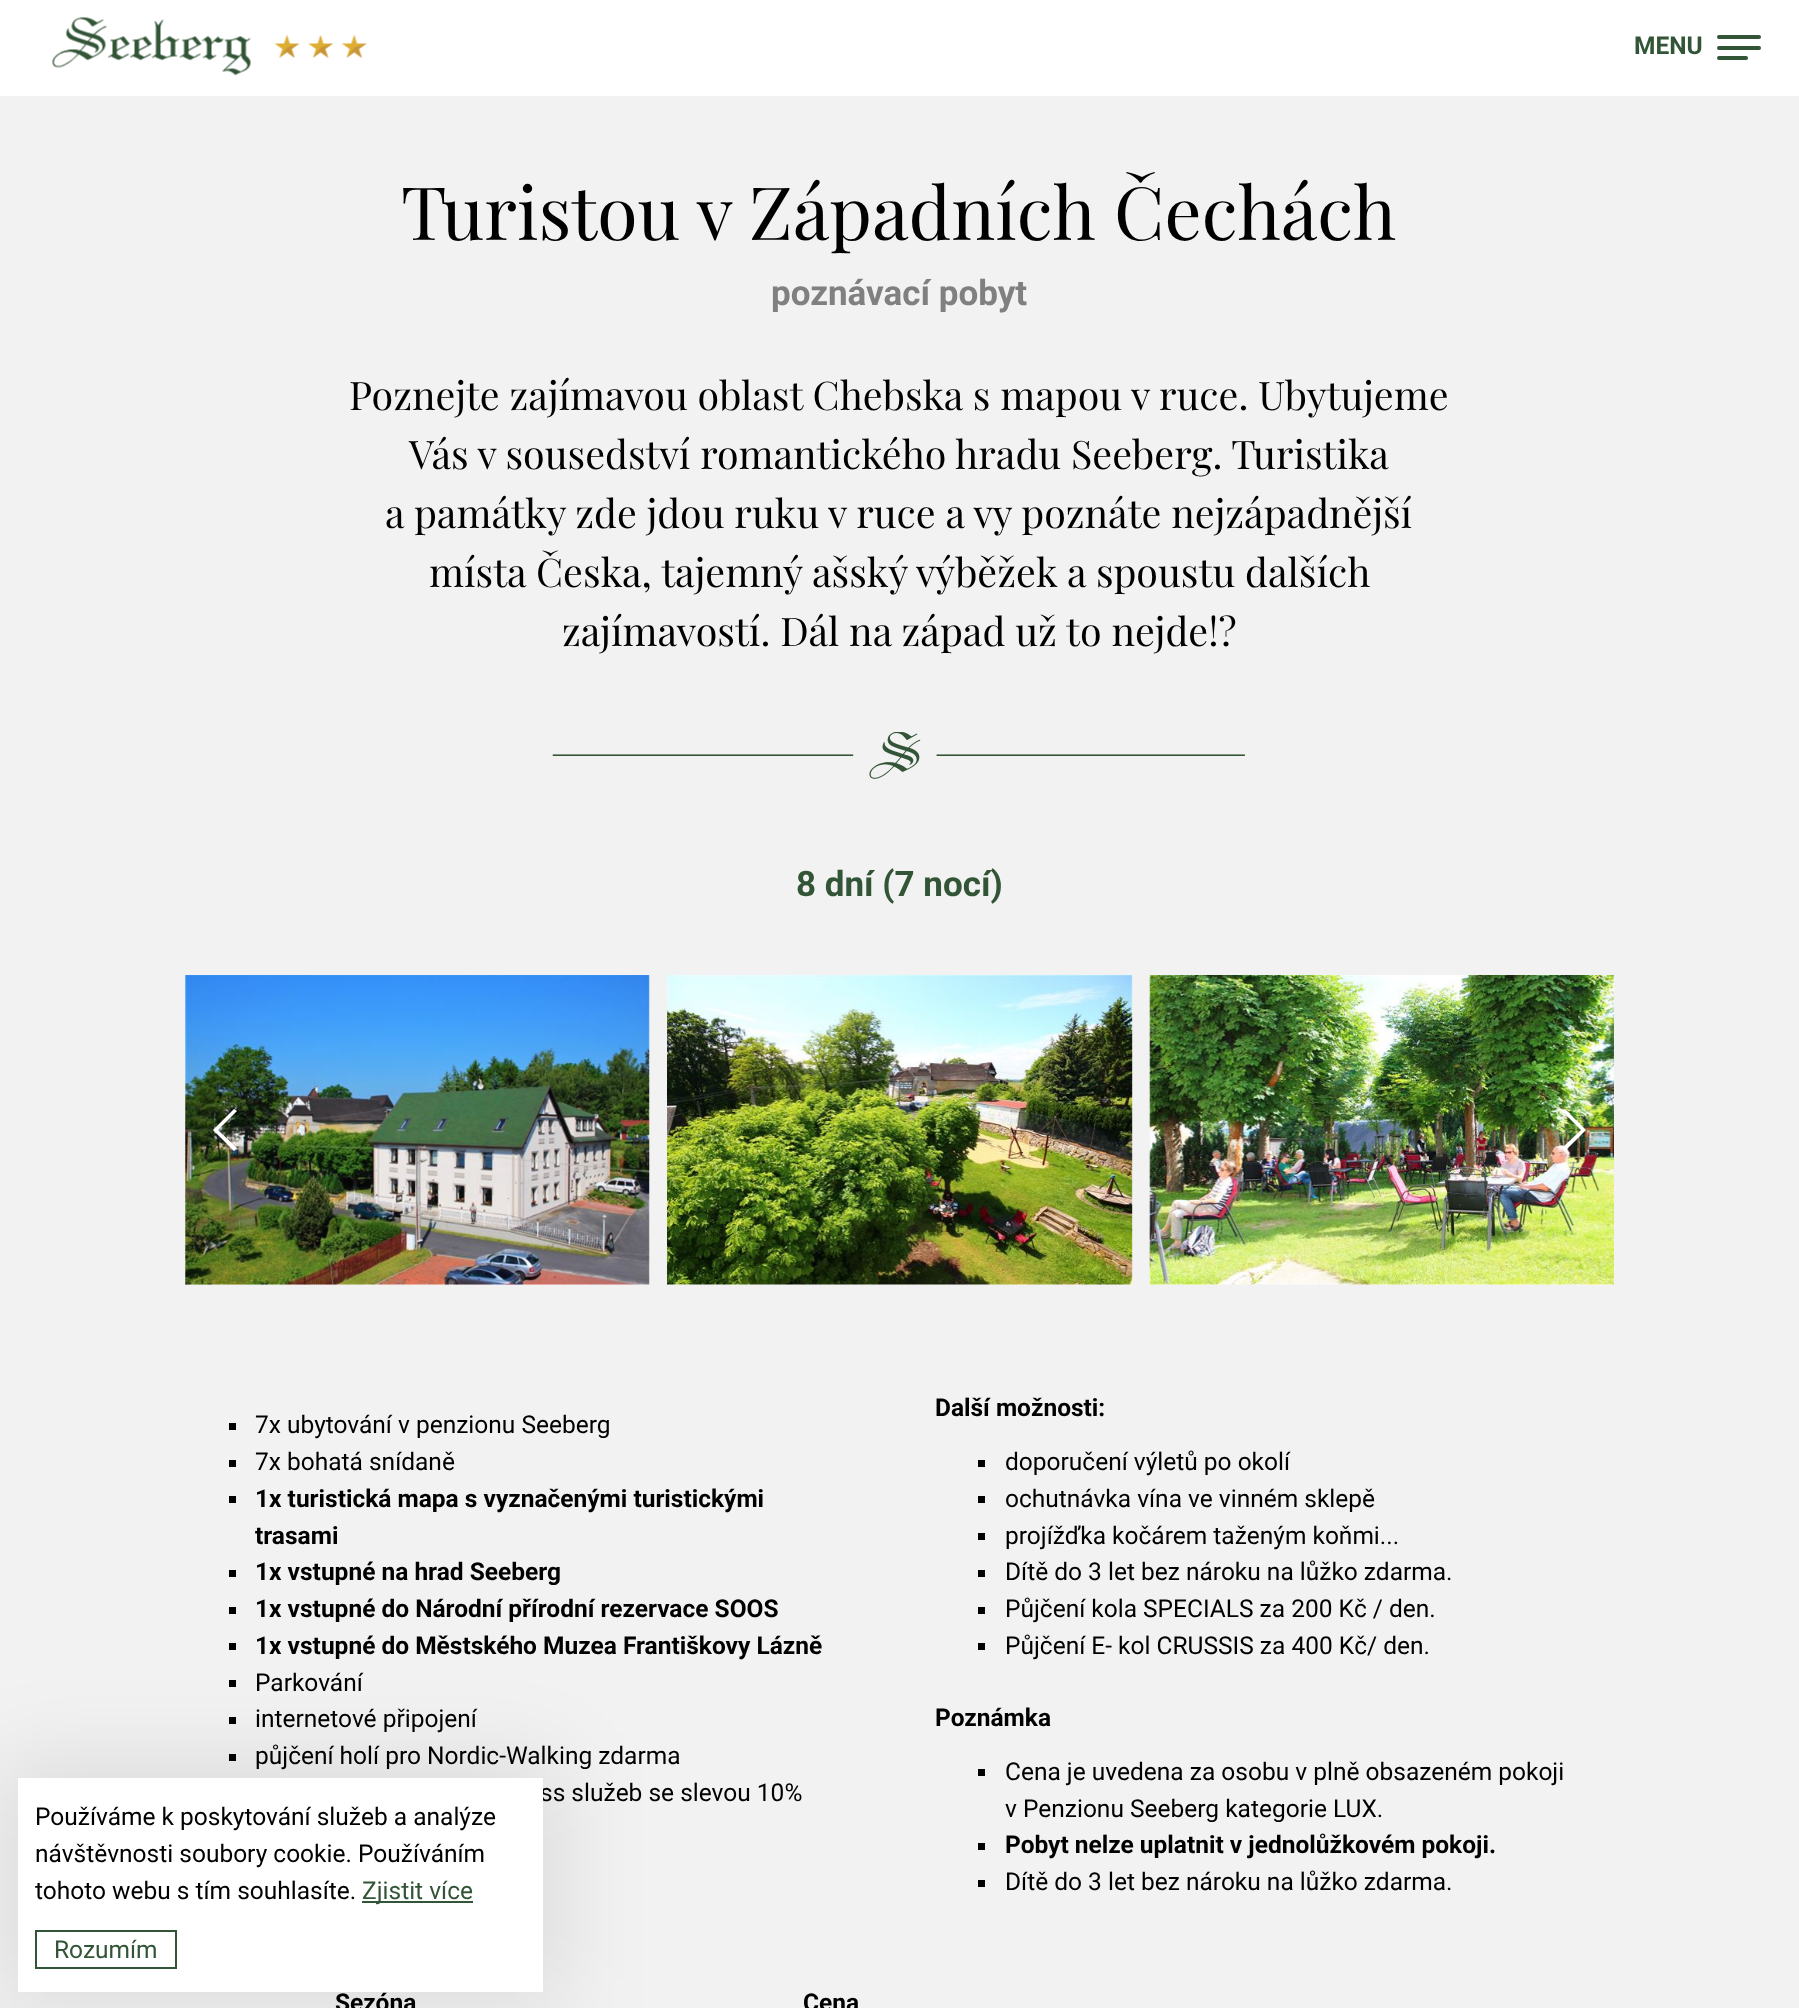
<?xml version="1.0" encoding="UTF-8"?>
<svg xmlns="http://www.w3.org/2000/svg" xmlns:xlink="http://www.w3.org/1999/xlink" width="1799" height="2008">
  <rect width="100%" height="100%" fill="#ffffff" />
  <image x="52" y="17" width="315" height="59" xlink:href="image1.png" />
  <rect x="1717" y="46" width="44" height="4" rx="2" fill="#335537" />
  <rect x="1717" y="35" width="44" height="4" rx="2" fill="#335537" />
  <rect x="1717" y="56" width="31" height="4" rx="2" fill="#335537" />
  <rect y="96" width="1799" height="1912" fill="#f2f2f2" />
  <image x="552" y="732" width="693" height="47" xlink:href="image2.png" />
  <image x="185" y="975" width="465" height="310" xlink:href="image3.png" />
  <image x="667" y="975" width="466" height="310" xlink:href="image4.png" />
  <image x="1149" y="975" width="465" height="310" xlink:href="image5.png" />
  <path d="M 234 1151 l 3 -3 l -19 -18 l 19 -19 l -3 -2 l -21 21 z" fill="#ffffff" />
  <path d="M 1565 1109 l -3 2 l 19 19 l -19 18 l 3 3 l 21 -21 z" fill="#ffffff" />
  <rect x="229" y="1423" width="7" height="7" fill="#000000" />
  <rect x="229" y="1460" width="7" height="7" fill="#000000" />
  <rect x="229" y="1496" width="7" height="7" fill="#000000" />
  <rect x="229" y="1570" width="7" height="7" fill="#000000" />
  <rect x="229" y="1607" width="7" height="7" fill="#000000" />
  <rect x="229" y="1643" width="7" height="7" fill="#000000" />
  <rect x="229" y="1680" width="7" height="7" fill="#000000" />
  <rect x="229" y="1717" width="7" height="7" fill="#000000" />
  <rect x="229" y="1754" width="7" height="7" fill="#000000" />
  <rect x="978" y="1460" width="7" height="7" fill="#000000" />
  <rect x="978" y="1496" width="7" height="7" fill="#000000" />
  <rect x="978" y="1533" width="7" height="7" fill="#000000" />
  <rect x="978" y="1570" width="7" height="7" fill="#000000" />
  <rect x="978" y="1607" width="7" height="7" fill="#000000" />
  <rect x="978" y="1643" width="7" height="7" fill="#000000" />
  <rect x="978" y="1769" width="7" height="7" fill="#000000" />
  <rect x="978" y="1843" width="7" height="7" fill="#000000" />
  <rect x="978" y="1880" width="7" height="7" fill="#000000" />
  <rect y="1761" width="560" height="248" fill="#000000" fill-opacity="0.09" filter="blur(44px)" />
  <text x="1634" y="54" style="font-family: Roboto; font-size: 24.5px; font-weight: bold; fill: #335537">MENU</text>
  <text x="401" y="240" style="font-family: Playfair Display; font-size: 73.5px; fill: #000000">Turistou v Západních Čechách</text>
  <text x="771" y="305" style="font-family: Roboto; font-size: 35px; font-weight: bold; fill: #808080">poznávací pobyt</text>
  <text x="349" y="410" style="font-family: Playfair Display; font-size: 39.4px; fill: #000000">Poznejte zajímavou oblast Chebska s mapou v ruce. Ubytujeme</text>
  <text x="409" y="469" style="font-family: Playfair Display; font-size: 39.4px; fill: #000000">Vás v sousedství romantického hradu Seeberg. Turistika</text>
  <text x="385" y="528" style="font-family: Playfair Display; font-size: 39.4px; fill: #000000">a památky zde jdou ruku v ruce a vy poznáte nejzápadnější</text>
  <text x="429" y="587" style="font-family: Playfair Display; font-size: 39.4px; fill: #000000">místa Česka, tajemný ašský výběžek a spoustu dalších</text>
  <text x="562" y="646" style="font-family: Playfair Display; font-size: 39.4px; fill: #000000">zajímavostí. Dál na západ už to nejde!?</text>
  <text x="796" y="896" style="font-family: Roboto; font-size: 35px; font-weight: bold; fill: #335537">8 dní (7 nocí)</text>
  <text x="255" y="1433" style="font-family: Roboto; font-size: 24.5px; fill: #000000">7x ubytování v penzionu Seeberg</text>
  <text x="255" y="1470" style="font-family: Roboto; font-size: 24.5px; fill: #000000">7x bohatá snídaně</text>
  <text x="255" y="1507" style="font-family: Roboto; font-size: 24.5px; font-weight: bold; fill: #000000">1x turistická mapa s vyznačenými turistickými</text>
  <text x="255" y="1544" style="font-family: Roboto; font-size: 24.5px; font-weight: bold; fill: #000000">trasami</text>
  <text x="255" y="1580" style="font-family: Roboto; font-size: 24.5px; font-weight: bold; fill: #000000">1x vstupné na hrad Seeberg</text>
  <text x="255" y="1617" style="font-family: Roboto; font-size: 24.5px; font-weight: bold; fill: #000000">1x vstupné do Národní přírodní rezervace SOOS</text>
  <text x="255" y="1654" style="font-family: Roboto; font-size: 24.5px; font-weight: bold; fill: #000000">1x vstupné do Městského Muzea Františkovy Lázně</text>
  <text x="255" y="1691" style="font-family: Roboto; font-size: 24.5px; fill: #000000">Parkování</text>
  <text x="255" y="1727" style="font-family: Roboto; font-size: 24.5px; fill: #000000">internetové připojení</text>
  <text x="255" y="1764" style="font-family: Roboto; font-size: 24.5px; fill: #000000">půjčení holí pro Nordic-Walking zdarma</text>
  <text x="540" y="1801" style="font-family: Roboto; font-size: 24.5px; fill: #000000">ss služeb se slevou 10%</text>
  <text x="935" y="1416" style="font-family: Roboto; font-size: 24.5px; font-weight: bold; fill: #000000">Další možnosti:</text>
  <text x="1005" y="1470" style="font-family: Roboto; font-size: 24.5px; fill: #000000">doporučení výletů po okolí</text>
  <text x="1005" y="1507" style="font-family: Roboto; font-size: 24.5px; fill: #000000">ochutnávka vína ve vinném sklepě</text>
  <text x="1005" y="1544" style="font-family: Roboto; font-size: 24.5px; fill: #000000">projížďka kočárem taženým koňmi...</text>
  <text x="1005" y="1580" style="font-family: Roboto; font-size: 24.5px; fill: #000000">Dítě do 3 let bez nároku na lůžko zdarma.</text>
  <text x="1005" y="1617" style="font-family: Roboto; font-size: 24.5px; fill: #000000">Půjčení kola SPECIALS za 200 Kč / den.</text>
  <text x="1005" y="1654" style="font-family: Roboto; font-size: 24.5px; fill: #000000">Půjčení E- kol CRUSSIS za 400 Kč/ den.</text>
  <text x="935" y="1726" style="font-family: Roboto; font-size: 24.5px; font-weight: bold; fill: #000000">Poznámka</text>
  <text x="1005" y="1780" style="font-family: Roboto; font-size: 24.5px; fill: #000000">Cena je uvedena za osobu v plně obsazeném pokoji</text>
  <text x="1005" y="1817" style="font-family: Roboto; font-size: 24.5px; fill: #000000">v Penzionu Seeberg kategorie LUX.</text>
  <text x="1005" y="1853" style="font-family: Roboto; font-size: 24.5px; font-weight: bold; fill: #000000">Pobyt nelze uplatnit v jednolůžkovém pokoji.</text>
  <text x="1005" y="1890" style="font-family: Roboto; font-size: 24.5px; fill: #000000">Dítě do 3 let bez nároku na lůžko zdarma.</text>
  <text x="335" y="2011" style="font-family: Roboto; font-size: 24.5px; font-weight: bold; fill: #000000">Sezóna</text>
  <text x="803" y="2011" style="font-family: Roboto; font-size: 24.5px; font-weight: bold; fill: #000000">Cena</text>
  <rect x="18" y="1778" width="525" height="214" fill="#ffffff" />
  <text x="35" y="1825" style="font-family: Roboto; font-size: 24.5px; fill: #000000">Používáme k poskytování služeb a analýze</text>
  <text x="35" y="1862" style="font-family: Roboto; font-size: 24.5px; fill: #000000">návštěvnosti soubory cookie. Používáním</text>
  <text x="35" y="1899" style="font-family: Roboto; font-size: 24.5px; fill: #000000">tohoto webu s tím souhlasíte.</text>
  <rect x="362" y="1901" width="111" height="2" fill="#335537" />
  <text x="362" y="1899" style="font-family: Roboto; font-size: 24.5px; fill: #335537">Zjistit více</text>
  <rect x="36" y="1931" width="140" height="37" fill="none" stroke="#335537" stroke-width="2" />
  <text x="54" y="1958" style="font-family: Roboto; font-size: 24.5px; fill: #335537">Rozumím</text>
</svg>
